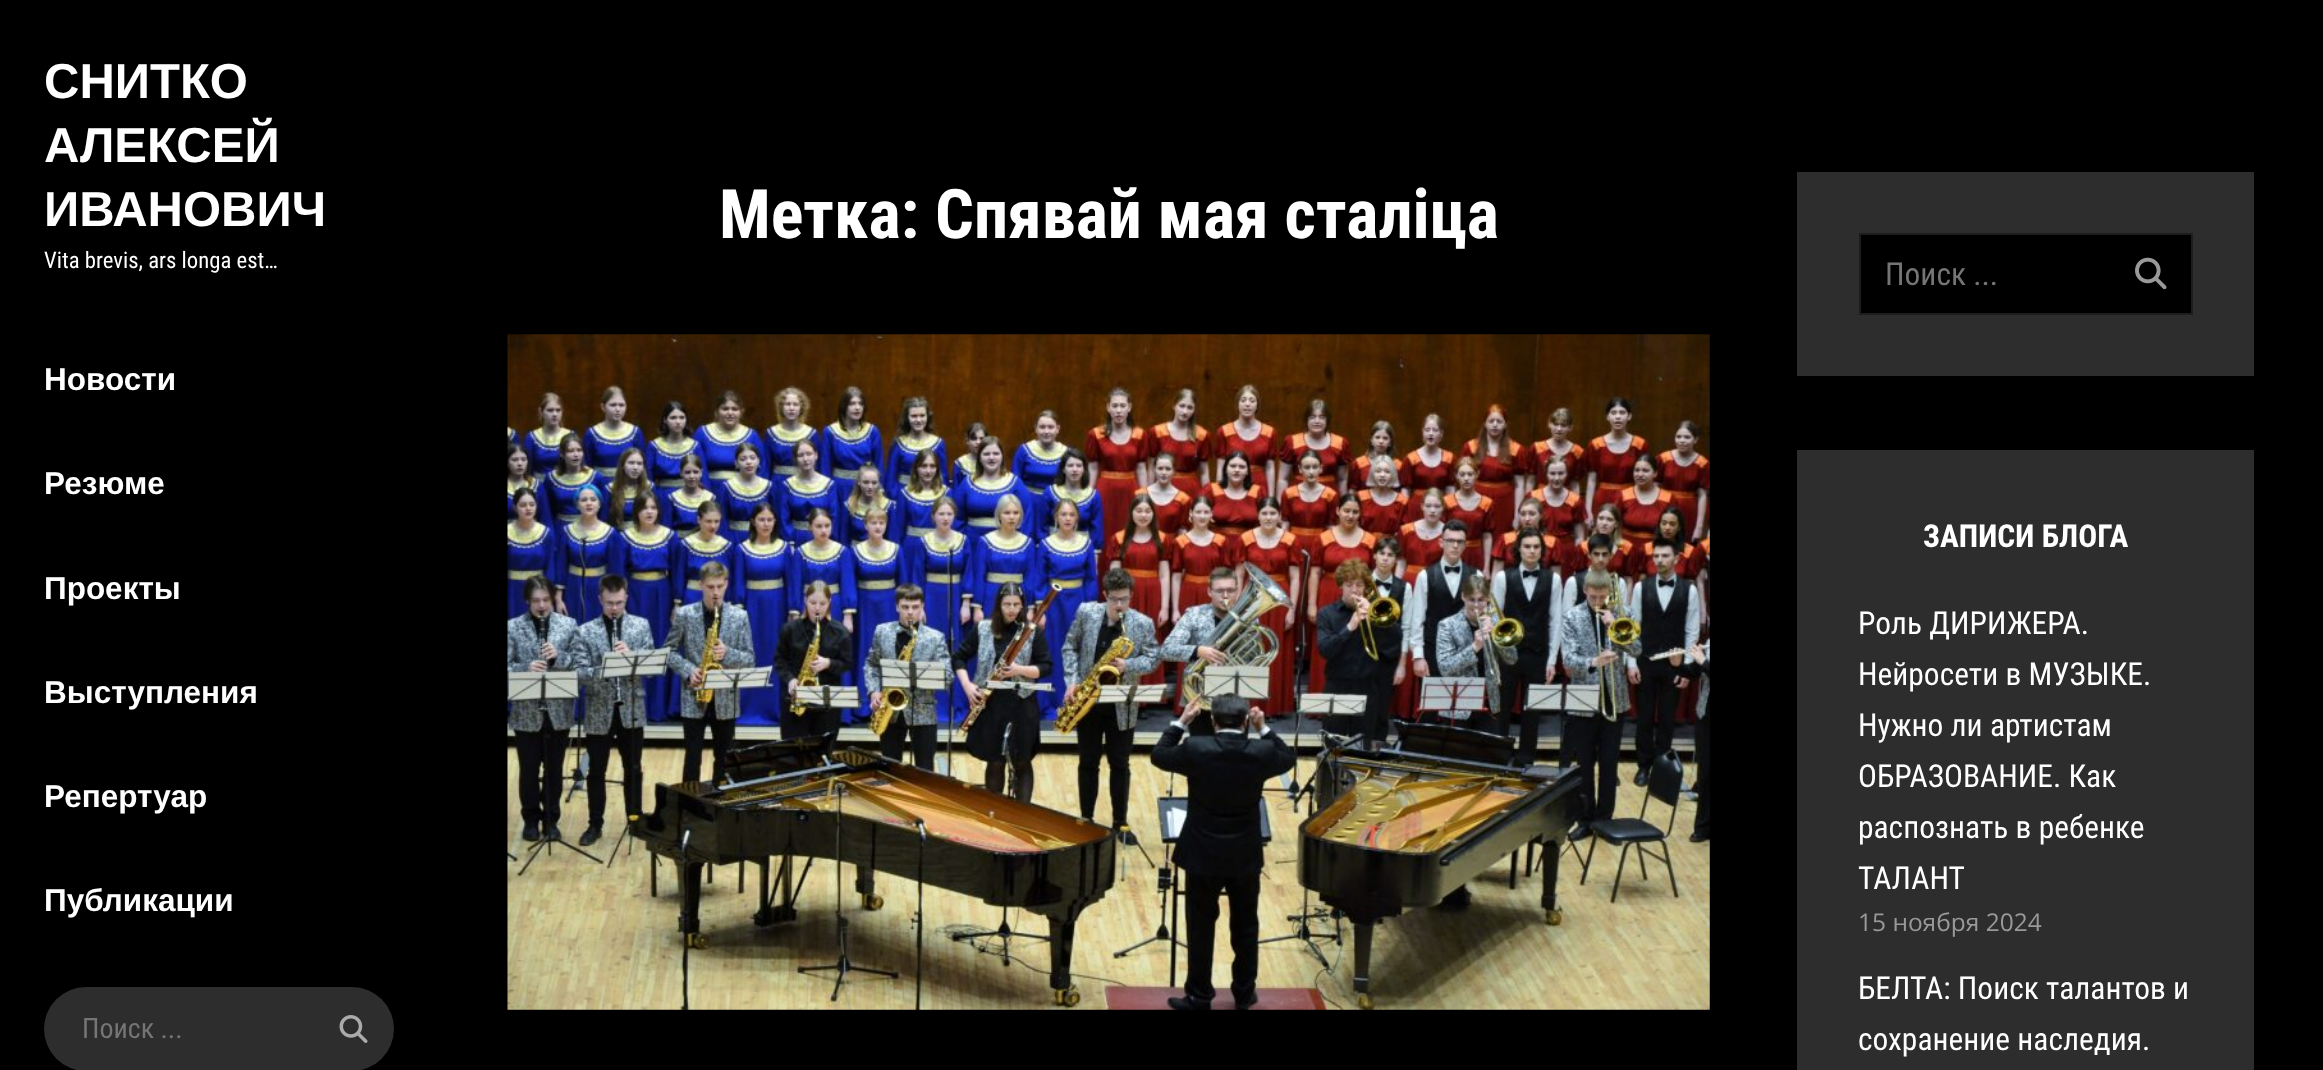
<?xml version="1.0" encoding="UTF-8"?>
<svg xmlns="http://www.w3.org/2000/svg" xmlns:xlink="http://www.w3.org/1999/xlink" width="2323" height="1070">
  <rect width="100%" height="100%" fill="#000000" />
  <rect x="44" y="987" width="350" height="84" rx="42" fill="#2d2d2d" />
  <image x="339" y="1015" width="29" height="28" xlink:href="image1.png" />
  <image x="507" y="334" width="1203" height="676" xlink:href="image2.png" />
  <rect x="1797" y="172" width="457" height="204" fill="#2d2d2d" />
  <rect x="1860" y="234" width="332" height="80" fill="#000000" stroke="#1d1d1d" stroke-width="2" />
  <image x="2135" y="257" width="32" height="33" xlink:href="image3.png" />
  <rect x="1797" y="450" width="457" height="620" fill="#2d2d2d" />
  <text x="44" y="98" style="font-family: Liberation Sans; font-size: 49px; font-weight: bold; fill: #ffffff">СНИТКО</text>
  <text x="44" y="162" style="font-family: Liberation Sans; font-size: 49px; font-weight: bold; fill: #ffffff">АЛЕКСЕЙ</text>
  <text x="44" y="226" style="font-family: Liberation Sans; font-size: 49px; font-weight: bold; fill: #ffffff">ИВАНОВИЧ</text>
  <text x="44" y="268" style="font-family: Roboto Condensed; font-size: 22.75px; fill: #ffffff">Vita brevis, ars longa est…</text>
  <text x="44" y="390" style="font-family: Liberation Sans; font-size: 31.5px; font-weight: bold; fill: #ffffff">Новости</text>
  <text x="44" y="494" style="font-family: Liberation Sans; font-size: 31.5px; font-weight: bold; fill: #ffffff">Резюме</text>
  <text x="44" y="599" style="font-family: Liberation Sans; font-size: 31.5px; font-weight: bold; fill: #ffffff">Проекты</text>
  <text x="44" y="703" style="font-family: Liberation Sans; font-size: 31.5px; font-weight: bold; fill: #ffffff">Выступления</text>
  <text x="44" y="807" style="font-family: Liberation Sans; font-size: 31.5px; font-weight: bold; fill: #ffffff">Репертуар</text>
  <text x="44" y="911" style="font-family: Liberation Sans; font-size: 31.5px; font-weight: bold; fill: #ffffff">Публикации</text>
  <text x="82" y="1038" style="font-family: Roboto Condensed; font-size: 28px; fill: #757575">Поиск ...</text>
  <text x="719" y="238" style="font-family: Roboto Condensed; font-size: 68.25px; font-weight: bold; fill: #ffffff">Метка: Спявай мая сталіца</text>
  <text x="1885" y="285" style="font-family: Roboto Condensed; font-size: 31.5px; fill: #757575">Поиск ...</text>
  <text x="1923" y="547" style="font-family: Roboto Condensed; font-size: 31.5px; font-weight: bold; fill: #ffffff">ЗАПИСИ БЛОГА</text>
  <text x="1858" y="634" style="font-family: Roboto Condensed; font-size: 31.5px; fill: #ffffff">Роль ДИРИЖЕРА.</text>
  <text x="1858" y="685" style="font-family: Roboto Condensed; font-size: 31.5px; fill: #ffffff">Нейросети в МУЗЫКЕ.</text>
  <text x="1858" y="736" style="font-family: Roboto Condensed; font-size: 31.5px; fill: #ffffff">Нужно ли артистам</text>
  <text x="1858" y="787" style="font-family: Roboto Condensed; font-size: 31.5px; fill: #ffffff">ОБРАЗОВАНИЕ. Как</text>
  <text x="1858" y="838" style="font-family: Roboto Condensed; font-size: 31.5px; fill: #ffffff">распознать в ребенке</text>
  <text x="1858" y="889" style="font-family: Roboto Condensed; font-size: 31.5px; fill: #ffffff">ТАЛАНТ</text>
  <text x="1858" y="931" style="font-family: Open Sans; font-size: 24.5px; fill: #999999">15 ноября 2024</text>
  <text x="1858" y="999" style="font-family: Roboto Condensed; font-size: 31.5px; fill: #ffffff">БЕЛТА: Поиск талантов и</text>
  <text x="1858" y="1050" style="font-family: Roboto Condensed; font-size: 31.5px; fill: #ffffff">сохранение наследия.</text>
</svg>
